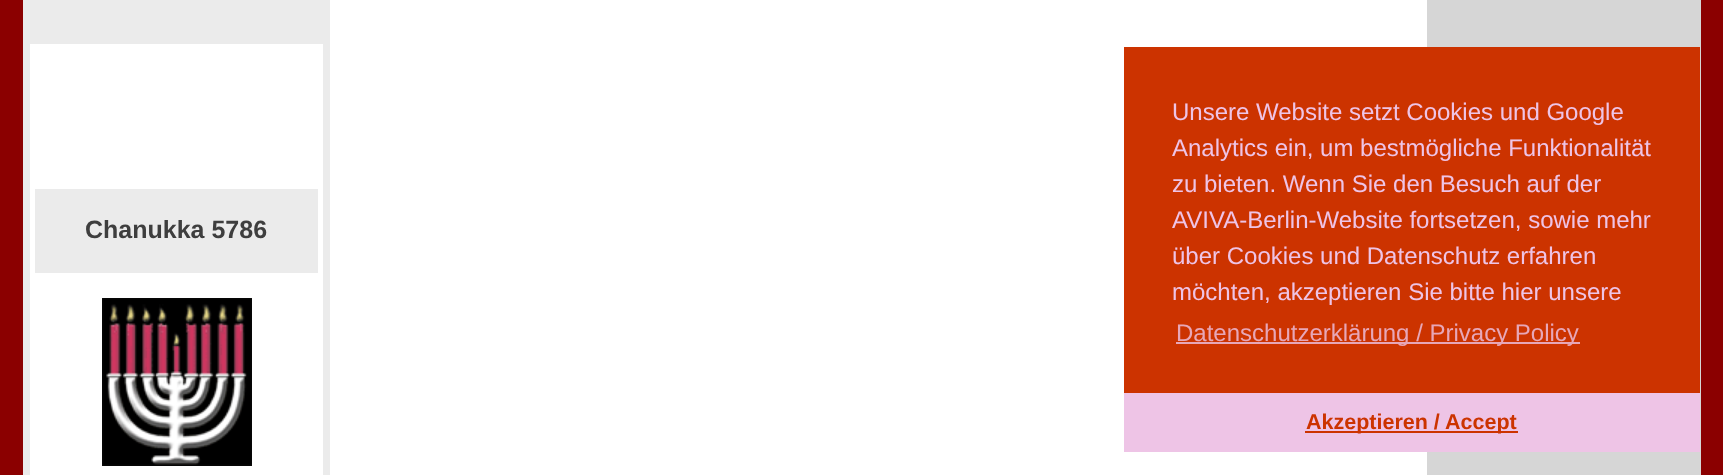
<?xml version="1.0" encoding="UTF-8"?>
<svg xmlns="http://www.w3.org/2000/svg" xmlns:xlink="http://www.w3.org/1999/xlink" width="1723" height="475">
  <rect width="100%" height="100%" fill="#8b0000" />
  <rect x="23" width="307" height="475" fill="#ebebeb" />
  <rect x="30" y="44" width="293" height="431" fill="#ffffff" />
  <rect x="35" y="189" width="283" height="84" fill="#ebebeb" />
  <image x="102" y="298" width="150" height="168" xlink:href="image1.png" />
  <rect x="330" width="1097" height="475" fill="#ffffff" />
  <rect x="1427" width="274" height="475" fill="#d6d6d6" />
  <rect x="1124" y="47" width="576" height="346" fill="#cc3300" />
  <rect x="1176" y="342" width="404" height="2" fill="#e7a7b8" />
  <rect x="1124" y="393" width="576" height="59" fill="#eec4e6" />
  <rect x="1305" y="431" width="213" height="2" fill="#cc3300" />
  <text x="85" y="238" style="font-family: Liberation Sans; font-size: 25px; font-weight: bold; fill: #3e3e3e">Chanukka 5786</text>
  <text x="1172" y="120" style="font-family: Liberation Sans; font-size: 24px; fill: #eec4e6">Unsere Website setzt Cookies und Google</text>
  <text x="1172" y="156" style="font-family: Liberation Sans; font-size: 24px; fill: #eec4e6">Analytics ein, um bestmögliche Funktionalität</text>
  <text x="1172" y="192" style="font-family: Liberation Sans; font-size: 24px; fill: #eec4e6">zu bieten. Wenn Sie den Besuch auf der</text>
  <text x="1172" y="228" style="font-family: Liberation Sans; font-size: 24px; fill: #eec4e6">AVIVA-Berlin-Website fortsetzen, sowie mehr</text>
  <text x="1172" y="264" style="font-family: Liberation Sans; font-size: 24px; fill: #eec4e6">über Cookies und Datenschutz erfahren</text>
  <text x="1172" y="300" style="font-family: Liberation Sans; font-size: 24px; fill: #eec4e6">möchten, akzeptieren Sie bitte hier unsere</text>
  <text x="1176" y="341" style="font-family: Liberation Sans; font-size: 24px; fill: #e7a7b8">Datenschutzerklärung / Privacy Policy</text>
  <text x="1306" y="429" style="font-family: Liberation Sans; font-size: 21.5px; font-weight: bold; fill: #cc3300">Akzeptieren / Accept</text>
</svg>
